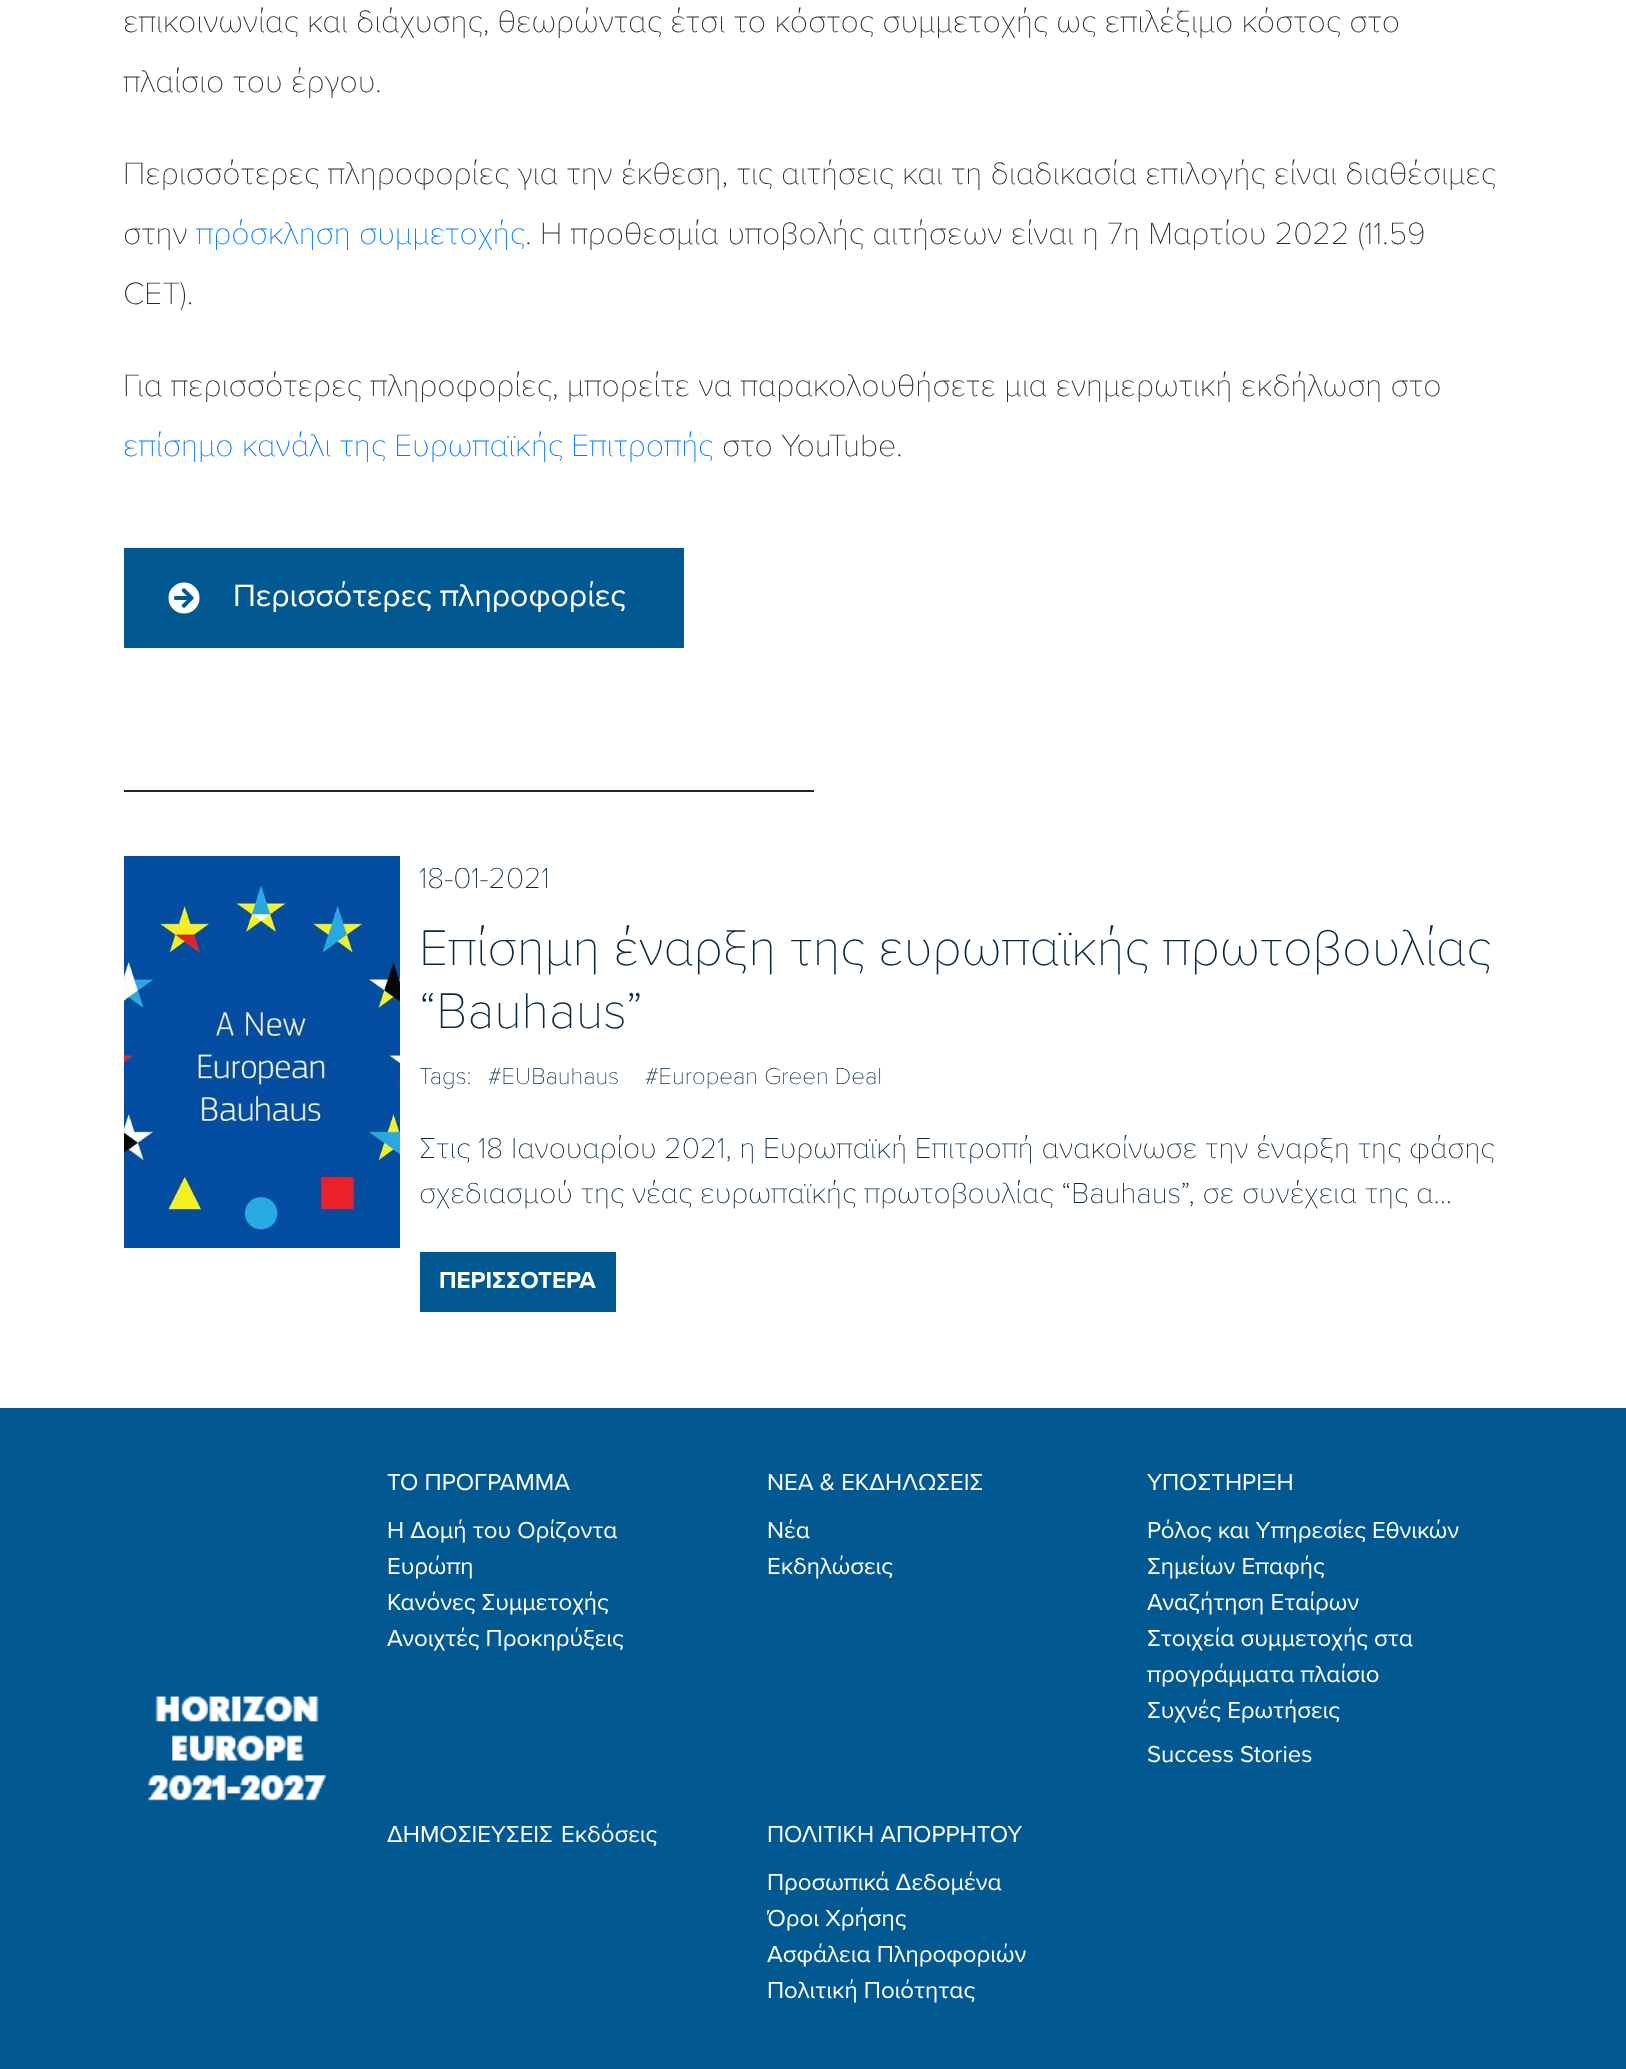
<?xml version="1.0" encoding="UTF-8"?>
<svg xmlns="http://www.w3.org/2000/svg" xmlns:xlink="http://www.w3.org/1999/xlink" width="1626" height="2069">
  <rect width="100%" height="100%" fill="#ffffff" />
  <rect x="124" y="548" width="560" height="100" fill="#025891" />
  <image x="168" y="582" width="32" height="32" xlink:href="image1.png" />
  <rect x="124" y="790" width="690" height="2" fill="#212529" />
  <image x="124" y="856" width="276" height="392" xlink:href="image2.png" />
  <rect x="420" y="1252" width="196" height="60" fill="#025891" />
  <rect y="1408" width="1626" height="661" fill="#025891" />
  <image x="148" y="1696" width="178" height="105" xlink:href="image3.png" />
  <text x="123" y="32" style="font-family: Proxima Nova; font-size: 32px; font-weight: 100; fill: #2b2b2b">επικοινωνίας και διάχυσης, θεωρώντας έτσι το κόστος συμμετοχής ως επιλέξιμο κόστος στο</text>
  <text x="123" y="92" style="font-family: Proxima Nova; font-size: 32px; font-weight: 100; fill: #2b2b2b">πλαίσιο του έργου.</text>
  <text x="123" y="184" style="font-family: Proxima Nova; font-size: 32px; font-weight: 100; fill: #2b2b2b">Περισσότερες πληροφορίες για την έκθεση, τις αιτήσεις και τη διαδικασία επιλογής είναι διαθέσιμες</text>
  <text x="123" y="244" style="font-family: Proxima Nova; font-size: 32px; font-weight: 100; fill: #2b2b2b">στην</text>
  <text x="196" y="244" style="font-family: Proxima Nova; font-size: 32px; font-weight: 100; fill: #007bff">πρόσκληση συμμετοχής</text>
  <text x="525" y="244" style="font-family: Proxima Nova; font-size: 32px; font-weight: 100; fill: #2b2b2b">. Η προθεσμία υποβολής αιτήσεων είναι η 7η Μαρτίου 2022 (11.59</text>
  <text x="123" y="304" style="font-family: Proxima Nova; font-size: 32px; font-weight: 100; fill: #2b2b2b">CET).</text>
  <text x="123" y="396" style="font-family: Proxima Nova; font-size: 32px; font-weight: 100; fill: #2b2b2b">Για περισσότερες πληροφορίες, μπορείτε να παρακολουθήσετε μια ενημερωτική εκδήλωση στο</text>
  <text x="123" y="456" style="font-family: Proxima Nova; font-size: 32px; font-weight: 100; fill: #007bff">επίσημο κανάλι της Ευρωπαϊκής Επιτροπής</text>
  <text x="722" y="456" style="font-family: Proxima Nova; font-size: 32px; font-weight: 100; fill: #2b2b2b">στο YouTube.</text>
  <text x="233" y="606" style="font-family: Proxima Nova; font-size: 32px; fill: #ffffff">Περισσότερες πληροφορίες</text>
  <text x="419" y="888" style="font-family: Proxima Nova; font-size: 30px; font-weight: 100; fill: #0b293d">18-01-2021</text>
  <text x="419" y="965" style="font-family: Proxima Nova; font-size: 52px; font-weight: 100; fill: #0b293d">Επίσημη έναρξη της ευρωπαϊκής πρωτοβουλίας</text>
  <text x="419" y="1028" style="font-family: Proxima Nova; font-size: 52px; font-weight: 100; fill: #0b293d">“Bauhaus”</text>
  <text x="419" y="1084" style="font-family: Proxima Nova; font-size: 24px; font-weight: 100; fill: #0b293d">Tags:</text>
  <text x="488" y="1084" style="font-family: Proxima Nova; font-size: 24px; font-weight: 100; fill: #0b293d">#EUBauhaus</text>
  <text x="645" y="1084" style="font-family: Proxima Nova; font-size: 24px; font-weight: 100; fill: #0b293d">#European Green Deal</text>
  <text x="419" y="1158" style="font-family: Proxima Nova; font-size: 30px; font-weight: 100; fill: #0b293d">Στις 18 Ιανουαρίου 2021, η Ευρωπαϊκή Επιτροπή ανακοίνωσε την έναρξη της φάσης</text>
  <text x="419" y="1203" style="font-family: Proxima Nova; font-size: 30px; font-weight: 100; fill: #0b293d">σχεδιασμού της νέας ευρωπαϊκής πρωτοβουλίας “Bauhaus”, σε συνέχεια της α...</text>
  <text x="439" y="1288" style="font-family: Proxima Nova; font-size: 24px; font-weight: bold; fill: #ffffff">ΠΕΡΙΣΣΟΤΕΡΑ</text>
  <text x="387" y="1490" style="font-family: Proxima Nova; font-size: 24px; fill: #ffffff">ΤΟ ΠΡΟΓΡΑΜΜΑ</text>
  <text x="387" y="1538" style="font-family: Proxima Nova; font-size: 24px; fill: #ffffff">Η Δομή του Ορίζοντα</text>
  <text x="387" y="1574" style="font-family: Proxima Nova; font-size: 24px; fill: #ffffff">Ευρώπη</text>
  <text x="387" y="1610" style="font-family: Proxima Nova; font-size: 24px; fill: #ffffff">Κανόνες Συμμετοχής</text>
  <text x="387" y="1646" style="font-family: Proxima Nova; font-size: 24px; fill: #ffffff">Ανοιχτές Προκηρύξεις</text>
  <text x="767" y="1490" style="font-family: Proxima Nova; font-size: 24px; fill: #ffffff">ΝΕΑ &amp; ΕΚΔΗΛΩΣΕΙΣ</text>
  <text x="767" y="1538" style="font-family: Proxima Nova; font-size: 24px; fill: #ffffff">Νέα</text>
  <text x="767" y="1574" style="font-family: Proxima Nova; font-size: 24px; fill: #ffffff">Εκδηλώσεις</text>
  <text x="1147" y="1490" style="font-family: Proxima Nova; font-size: 24px; fill: #ffffff">ΥΠΟΣΤΗΡΙΞΗ</text>
  <text x="1147" y="1538" style="font-family: Proxima Nova; font-size: 24px; fill: #ffffff">Ρόλος και Υπηρεσίες Εθνικών</text>
  <text x="1147" y="1574" style="font-family: Proxima Nova; font-size: 24px; fill: #ffffff">Σημείων Επαφής</text>
  <text x="1147" y="1610" style="font-family: Proxima Nova; font-size: 24px; fill: #ffffff">Αναζήτηση Εταίρων</text>
  <text x="1147" y="1646" style="font-family: Proxima Nova; font-size: 24px; fill: #ffffff">Στοιχεία συμμετοχής στα</text>
  <text x="1147" y="1682" style="font-family: Proxima Nova; font-size: 24px; fill: #ffffff">προγράμματα πλαίσιο</text>
  <text x="1147" y="1718" style="font-family: Proxima Nova; font-size: 24px; fill: #ffffff">Συχνές Ερωτήσεις</text>
  <text x="1147" y="1762" style="font-family: Proxima Nova; font-size: 24px; fill: #ffffff">Success Stories</text>
  <text x="387" y="1842" style="font-family: Proxima Nova; font-size: 24px; fill: #ffffff">ΔΗΜΟΣΙΕΥΣΕΙΣ</text>
  <text x="561" y="1842" style="font-family: Proxima Nova; font-size: 24px; fill: #ffffff">Εκδόσεις</text>
  <text x="767" y="1842" style="font-family: Proxima Nova; font-size: 24px; fill: #ffffff">ΠΟΛΙΤΙΚΗ ΑΠΟΡΡΗΤΟΥ</text>
  <text x="767" y="1890" style="font-family: Proxima Nova; font-size: 24px; fill: #ffffff">Προσωπικά Δεδομένα</text>
  <text x="767" y="1926" style="font-family: Proxima Nova; font-size: 24px; fill: #ffffff">Όροι Χρήσης</text>
  <text x="767" y="1962" style="font-family: Proxima Nova; font-size: 24px; fill: #ffffff">Ασφάλεια Πληροφοριών</text>
  <text x="767" y="1998" style="font-family: Proxima Nova; font-size: 24px; fill: #ffffff">Πολιτική Ποιότητας</text>
</svg>
